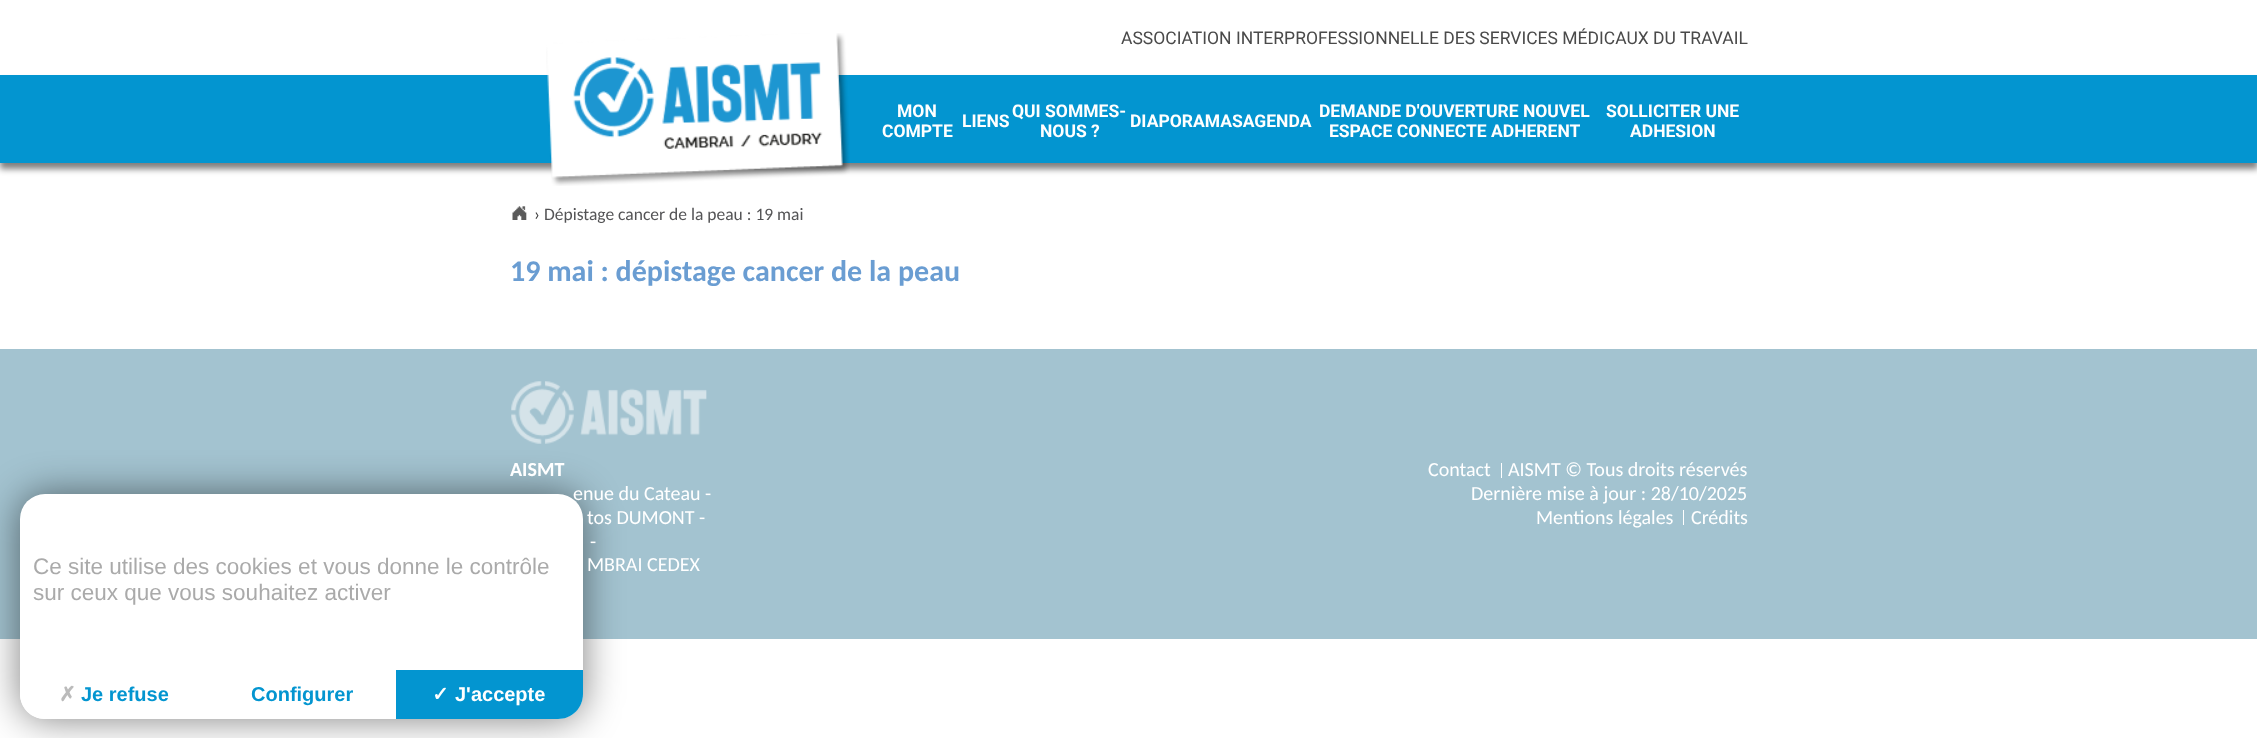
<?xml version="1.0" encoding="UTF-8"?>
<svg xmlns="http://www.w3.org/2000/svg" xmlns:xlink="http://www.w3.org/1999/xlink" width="2257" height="738">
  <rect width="100%" height="100%" fill="#ffffff" />
  <rect y="81" width="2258" height="88" fill="#000000" fill-opacity="0.5" filter="blur(3px)" />
  <rect y="75" width="2257" height="88" fill="#0395d0" />
  <image x="546" y="33" width="304" height="153" xlink:href="image1.png" />
  <image x="512" y="206" width="15" height="14" xlink:href="image2.png" />
  <rect y="349" width="2257" height="290" fill="#a3c3d0" />
  <image x="511" y="381" width="196" height="63" xlink:href="image3.png" />
  <rect x="1501" y="463" width="1" height="15" fill="#ffffff" />
  <rect x="1683" y="510" width="1" height="15" fill="#ffffff" />
  <rect x="20" y="494" width="563" height="225" rx="25" fill="#000000" fill-opacity="0.5" filter="blur(19px)" />
  <rect x="20" y="494" width="563" height="225" rx="25" fill="#ffffff" />
  <path d="M 20 670 h 188 v 49 h -163 c -14 0 -25 -11 -25 -25 z" fill="#ffffff" />
  <path d="M 395 670 h 188 v 24 c 0 14 -11 25 -25 25 h -163 z" fill="#0395d0" />
  <rect x="395" y="670" width="1" height="49" fill="#ffffff" />
  <text x="1121" y="44" style="font-family: Roboto; font-size: 17.5px; fill: #4a4a4a">ASSOCIATION INTERPROFESSIONNELLE DES SERVICES MÉDICAUX DU TRAVAIL</text>
  <text x="897" y="117" style="font-family: Roboto; font-size: 17.5px; font-weight: bold; fill: #ffffff">MON</text>
  <text x="882" y="137" style="font-family: Roboto; font-size: 17.5px; font-weight: bold; fill: #ffffff">COMPTE</text>
  <text x="962" y="127" style="font-family: Roboto; font-size: 17.5px; font-weight: bold; fill: #ffffff">LIENS</text>
  <text x="1012" y="117" style="font-family: Roboto; font-size: 17.5px; font-weight: bold; fill: #ffffff">QUI SOMMES-</text>
  <text x="1040" y="137" style="font-family: Roboto; font-size: 17.5px; font-weight: bold; fill: #ffffff">NOUS ?</text>
  <text x="1130" y="127" style="font-family: Roboto; font-size: 17.5px; font-weight: bold; fill: #ffffff">DIAPORAMASAGENDA</text>
  <text x="1319" y="117" style="font-family: Roboto; font-size: 17.5px; font-weight: bold; fill: #ffffff">DEMANDE D'OUVERTURE NOUVEL</text>
  <text x="1329" y="137" style="font-family: Roboto; font-size: 17.5px; font-weight: bold; fill: #ffffff">ESPACE CONNECTE ADHERENT</text>
  <text x="1606" y="117" style="font-family: Roboto; font-size: 17.5px; font-weight: bold; fill: #ffffff">SOLLICITER UNE</text>
  <text x="1630" y="137" style="font-family: Roboto; font-size: 17.5px; font-weight: bold; fill: #ffffff">ADHESION</text>
  <text x="534" y="220" style="font-family: Carlito; font-size: 17.5px; fill: #404040">›</text>
  <text x="544" y="220" style="font-family: Carlito; font-size: 17.5px; fill: #545456">Dépistage cancer de la peau : 19 mai</text>
  <text x="510" y="281" style="font-family: Carlito; font-size: 30px; font-weight: bold; fill: #6a9dd2">19 mai : dépistage cancer de la peau</text>
  <text x="510" y="476" style="font-family: Carlito; font-size: 20px; font-weight: bold; fill: #ffffff">AISMT</text>
  <text x="573" y="500" style="font-family: Carlito; font-size: 20px; fill: #ffffff">enue du Cateau -</text>
  <text x="587" y="524" style="font-family: Carlito; font-size: 20px; fill: #ffffff">tos DUMONT -</text>
  <text x="590" y="548" style="font-family: Carlito; font-size: 20px; fill: #ffffff">-</text>
  <text x="587" y="571" style="font-family: Carlito; font-size: 20px; fill: #ffffff">MBRAI CEDEX</text>
  <text x="1428" y="476" style="font-family: Carlito; font-size: 20px; fill: #ffffff">Contact</text>
  <text x="1508" y="476" style="font-family: Carlito; font-size: 20px; fill: #ffffff">AISMT © Tous droits réservés</text>
  <text x="1471" y="500" style="font-family: Carlito; font-size: 20px; fill: #ffffff">Dernière mise à jour : 28/10/2025</text>
  <text x="1536" y="524" style="font-family: Carlito; font-size: 20px; fill: #ffffff">Mentions légales</text>
  <text x="1691" y="524" style="font-family: Carlito; font-size: 20px; fill: #ffffff">Crédits</text>
  <text x="33" y="574" style="font-family: Liberation Sans; font-size: 22.5px; fill: #aaaaaa">Ce site utilise des cookies et vous donne le contrôle</text>
  <text x="33" y="600" style="font-family: Liberation Sans; font-size: 22.5px; fill: #aaaaaa">sur ceux que vous souhaitez activer</text>
  <text x="59" y="701" style="font-family: DejaVu Sans; font-size: 20px; font-weight: bold; fill: #bbbbbb">✗</text>
  <text x="81" y="701" style="font-family: Liberation Sans; font-size: 20px; font-weight: bold; fill: #0395d0">Je refuse</text>
  <text x="251" y="701" style="font-family: Liberation Sans; font-size: 20px; font-weight: bold; fill: #0395d0">Configurer</text>
  <text x="432" y="701" style="font-family: DejaVu Sans; font-size: 20px; font-weight: bold; fill: #ffffff">✓</text>
  <text x="455" y="701" style="font-family: Liberation Sans; font-size: 20px; font-weight: bold; fill: #ffffff">J'accepte</text>
</svg>
